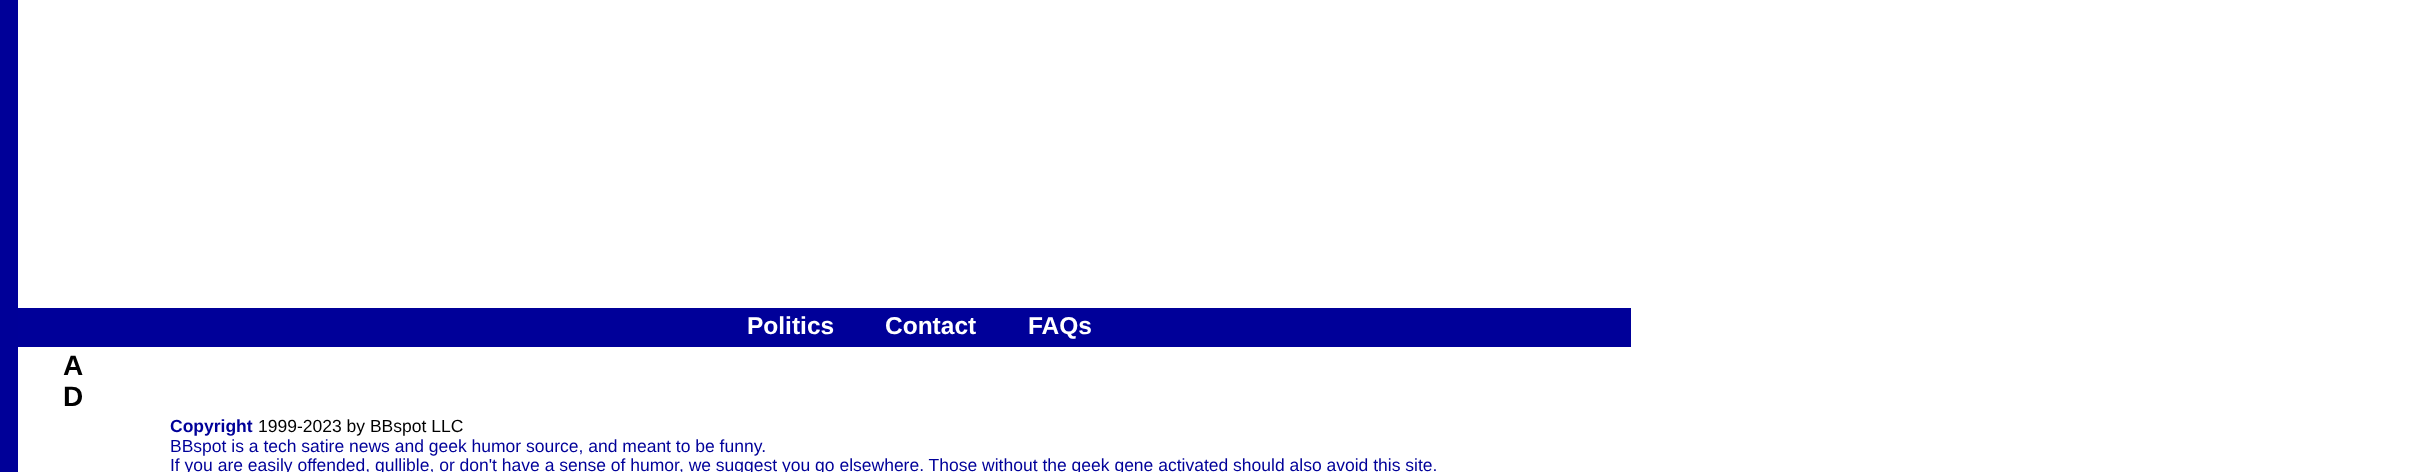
<?xml version="1.0" encoding="UTF-8"?>
<svg xmlns="http://www.w3.org/2000/svg" xmlns:xlink="http://www.w3.org/1999/xlink" width="2424" height="472">
  <rect width="100%" height="100%" fill="#ffffff" />
  <rect width="18" height="472" fill="#000098" />
  <rect x="18" y="308" width="1613" height="39" fill="#000099" />
  <text x="747" y="334" style="font-family: Liberation Sans; font-size: 24.5px; font-weight: bold; fill: #ffffff">Politics</text>
  <text x="885" y="334" style="font-family: Liberation Sans; font-size: 24.5px; font-weight: bold; fill: #ffffff">Contact</text>
  <text x="1028" y="334" style="font-family: Liberation Sans; font-size: 24.5px; font-weight: bold; fill: #ffffff">FAQs</text>
  <text x="63" y="375" style="font-family: Liberation Sans; font-size: 28px; font-weight: bold; fill: #000000">A</text>
  <text x="63" y="406" style="font-family: Liberation Sans; font-size: 28px; font-weight: bold; fill: #000000">D</text>
  <text x="170" y="432" style="font-family: Liberation Sans; font-size: 17.5px; font-weight: bold; fill: #000099">Copyright</text>
  <text x="258" y="432" style="font-family: Liberation Sans; font-size: 17.5px; fill: #000000">1999-2023 by BBspot LLC</text>
  <text x="170" y="452" style="font-family: Liberation Sans; font-size: 17.5px; fill: #000099">BBspot is a tech satire news and geek humor source, and meant to be funny.</text>
  <text x="170" y="471" style="font-family: Liberation Sans; font-size: 17.5px; fill: #000099">If you are easily offended, gullible, or don't have a sense of humor, we suggest you go elsewhere. Those without the geek gene activated should also avoid this site.</text>
</svg>
